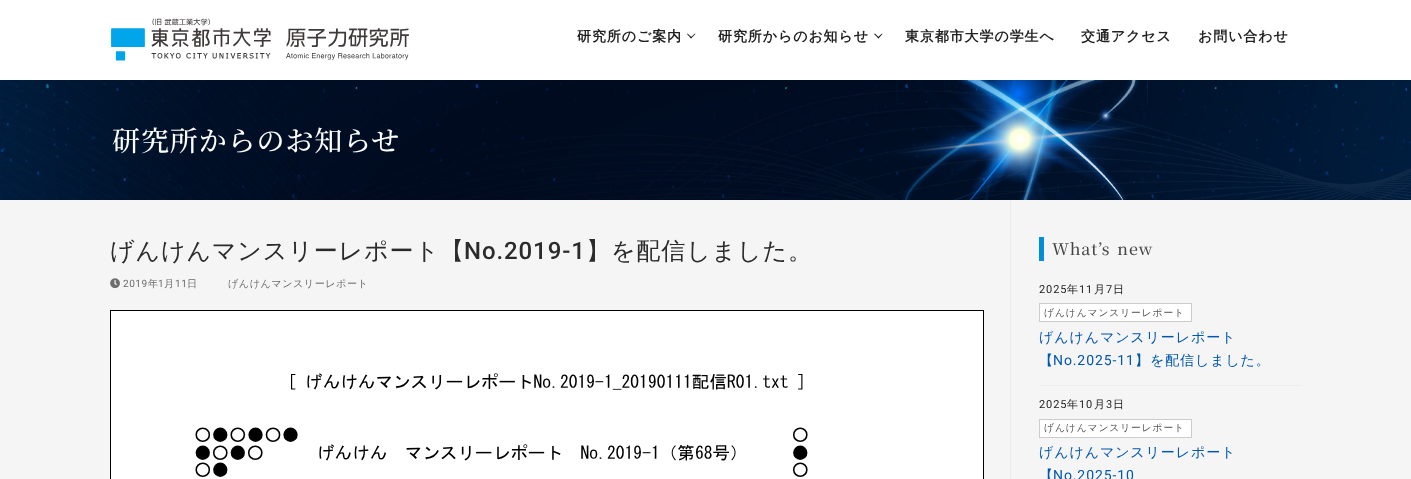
<?xml version="1.0" encoding="UTF-8"?>
<svg xmlns="http://www.w3.org/2000/svg" xmlns:xlink="http://www.w3.org/1999/xlink" width="1411" height="479">
  <rect width="100%" height="100%" fill="#ffffff" />
  <image x="111" y="18" width="298" height="43" xlink:href="image1.png" />
  <path d="M 691 38.5 l -4 -4.5 l 0.5 -0.5 l 4.5 4 z" fill="#222222" />
  <path d="M 691 38.5 l -0.5 -1 l 4.5 -4 l 0.5 0.5 z" fill="#222222" />
  <path d="M 878.5 38.5 l -4.5 -4.5 l 1 -0.5 l 4 4 z" fill="#222222" />
  <path d="M 878.5 38.5 l -1 -1 l 4.5 -4 l 0.5 0.5 z" fill="#222222" />
  <image x="0" y="80" width="1411" height="120" xlink:href="image2.png" />
  <rect y="200" width="1411" height="279" fill="#f5f5f5" />
  <rect x="1010" y="200" width="1" height="279" fill="#eaecee" />
  <image x="110" y="278" width="10" height="11" xlink:href="image3.png" />
  <rect x="110.5" y="310.5" width="873" height="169" fill="none" stroke="#000000" />
  <rect x="111" y="311" width="872" height="168" fill="#ffffff" />
  <image x="195" y="373" width="613" height="104" xlink:href="image4.png" />
  <rect x="1039" y="237" width="5" height="24" fill="#018ed7" />
  <rect x="1039" y="385" width="263" height="1" fill="#eeeeee" />
  <rect x="1039.5" y="303.5" width="152" height="18" fill="#ffffff" stroke="#cccccc" />
  <rect x="1039.5" y="419.5" width="152" height="18" fill="#ffffff" stroke="#cccccc" />
  <text x="577" y="41" style="font-family: WenQuanYi Zen Hei; font-size: 14px; font-weight: bold; letter-spacing: 0.9px; fill: #222222">研究所のご案内</text>
  <text x="718" y="41" style="font-family: WenQuanYi Zen Hei; font-size: 14px; font-weight: bold; letter-spacing: 0.9px; fill: #222222">研究所からのお知らせ</text>
  <text x="905" y="41" style="font-family: WenQuanYi Zen Hei; font-size: 14px; font-weight: bold; letter-spacing: 0.9px; fill: #222222">東京都市大学の学生へ</text>
  <text x="1081" y="41" style="font-family: WenQuanYi Zen Hei; font-size: 14px; font-weight: bold; letter-spacing: 0.9px; fill: #222222">交通アクセス</text>
  <text x="1198" y="41" style="font-family: WenQuanYi Zen Hei; font-size: 14px; font-weight: bold; letter-spacing: 0.9px; fill: #222222">お問い合わせ</text>
  <text x="112" y="151" style="font-family: Noto Serif JP; font-size: 28px; font-weight: 500; letter-spacing: 0.9px; fill: #fcfdfd">研究所からのお知らせ</text>
  <text x="110" y="259" style="font-family: WenQuanYi Zen Hei; font-size: 24px; font-weight: 500; letter-spacing: 0.9px; fill: #2b2b2b">げんけんマンスリーレポート【</text>
  <text x="464" y="259" style="font-family: Roboto; font-size: 24px; font-weight: 500; letter-spacing: 0.9px; fill: #2b2b2b">No.2019-1</text>
  <text x="586" y="259" style="font-family: WenQuanYi Zen Hei; font-size: 24px; font-weight: 500; letter-spacing: 0.9px; fill: #2b2b2b">】を配信しました。</text>
  <text x="123" y="287" style="font-family: Roboto; font-size: 10.1px; letter-spacing: 0.5px; fill: #6d6d6d">2019</text>
  <text x="148" y="287" style="font-family: WenQuanYi Zen Hei; font-size: 10.1px; font-weight: 500; letter-spacing: 0.5px; fill: #6d6d6d">年</text>
  <text x="158" y="287" style="font-family: Roboto; font-size: 10.1px; letter-spacing: 0.5px; fill: #6d6d6d">1</text>
  <text x="164" y="287" style="font-family: WenQuanYi Zen Hei; font-size: 10.1px; font-weight: 500; letter-spacing: 0.5px; fill: #6d6d6d">月</text>
  <text x="175" y="287" style="font-family: Roboto; font-size: 10.1px; letter-spacing: 0.5px; fill: #6d6d6d">11</text>
  <text x="187" y="287" style="font-family: WenQuanYi Zen Hei; font-size: 10.1px; font-weight: 500; letter-spacing: 0.5px; fill: #6d6d6d">日</text>
  <text x="228" y="287" style="font-family: WenQuanYi Zen Hei; font-size: 10.1px; font-weight: 500; letter-spacing: 0.5px; fill: #6d6d6d">げんけんマンスリーレポート</text>
  <text x="1052" y="255" word-spacing="2" style="font-family: Noto Serif JP; font-size: 16px; font-weight: 500; letter-spacing: 0.9px; fill: #444444">What’s new</text>
  <text x="1039" y="293" style="font-family: Roboto; font-size: 11px; letter-spacing: 0.9px; fill: #222222">2025</text>
  <text x="1067" y="293" style="font-family: WenQuanYi Zen Hei; font-size: 11px; font-weight: 500; letter-spacing: 0.9px; fill: #222222">年</text>
  <text x="1079" y="293" style="font-family: Roboto; font-size: 11px; letter-spacing: 0.9px; fill: #222222">11</text>
  <text x="1094" y="293" style="font-family: WenQuanYi Zen Hei; font-size: 11px; font-weight: 500; letter-spacing: 0.9px; fill: #222222">月</text>
  <text x="1106" y="293" style="font-family: Roboto; font-size: 11px; letter-spacing: 0.9px; fill: #222222">7</text>
  <text x="1113" y="293" style="font-family: WenQuanYi Zen Hei; font-size: 11px; font-weight: 500; letter-spacing: 0.9px; fill: #222222">日</text>
  <text x="1044" y="316" style="font-family: WenQuanYi Zen Hei; font-size: 9.75px; font-weight: 500; letter-spacing: 0.9px; fill: #555555">げんけんマンスリーレポート</text>
  <text x="1039" y="342" style="font-family: WenQuanYi Zen Hei; font-size: 14px; font-weight: 500; letter-spacing: 0.9px; fill: #0057af">げんけんマンスリーレポート</text>
  <text x="1039" y="365" style="font-family: WenQuanYi Zen Hei; font-size: 14px; font-weight: 500; letter-spacing: 0.9px; fill: #0057af">【</text>
  <text x="1053" y="365" style="font-family: Roboto; font-size: 14px; letter-spacing: 0.9px; fill: #0057af">No.2025-11</text>
  <text x="1135" y="365" style="font-family: WenQuanYi Zen Hei; font-size: 14px; font-weight: 500; letter-spacing: 0.9px; fill: #0057af">】を配信しました。</text>
  <text x="1039" y="408" style="font-family: Roboto; font-size: 11px; letter-spacing: 0.9px; fill: #222222">2025</text>
  <text x="1067" y="408" style="font-family: WenQuanYi Zen Hei; font-size: 11px; font-weight: 500; letter-spacing: 0.9px; fill: #222222">年</text>
  <text x="1079" y="408" style="font-family: Roboto; font-size: 11px; letter-spacing: 0.9px; fill: #222222">10</text>
  <text x="1094" y="408" style="font-family: WenQuanYi Zen Hei; font-size: 11px; font-weight: 500; letter-spacing: 0.9px; fill: #222222">月</text>
  <text x="1106" y="408" style="font-family: Roboto; font-size: 11px; letter-spacing: 0.9px; fill: #222222">3</text>
  <text x="1113" y="408" style="font-family: WenQuanYi Zen Hei; font-size: 11px; font-weight: 500; letter-spacing: 0.9px; fill: #222222">日</text>
  <text x="1044" y="431" style="font-family: WenQuanYi Zen Hei; font-size: 9.75px; font-weight: 500; letter-spacing: 0.9px; fill: #555555">げんけんマンスリーレポート</text>
  <text x="1039" y="457" style="font-family: WenQuanYi Zen Hei; font-size: 14px; font-weight: 500; letter-spacing: 0.9px; fill: #0057af">げんけんマンスリーレポート</text>
  <text x="1039" y="480" style="font-family: WenQuanYi Zen Hei; font-size: 14px; font-weight: 500; letter-spacing: 0.9px; fill: #0057af">【</text>
  <text x="1053" y="480" style="font-family: Roboto; font-size: 14px; letter-spacing: 0.9px; fill: #0057af">No.2025-10</text>
</svg>
